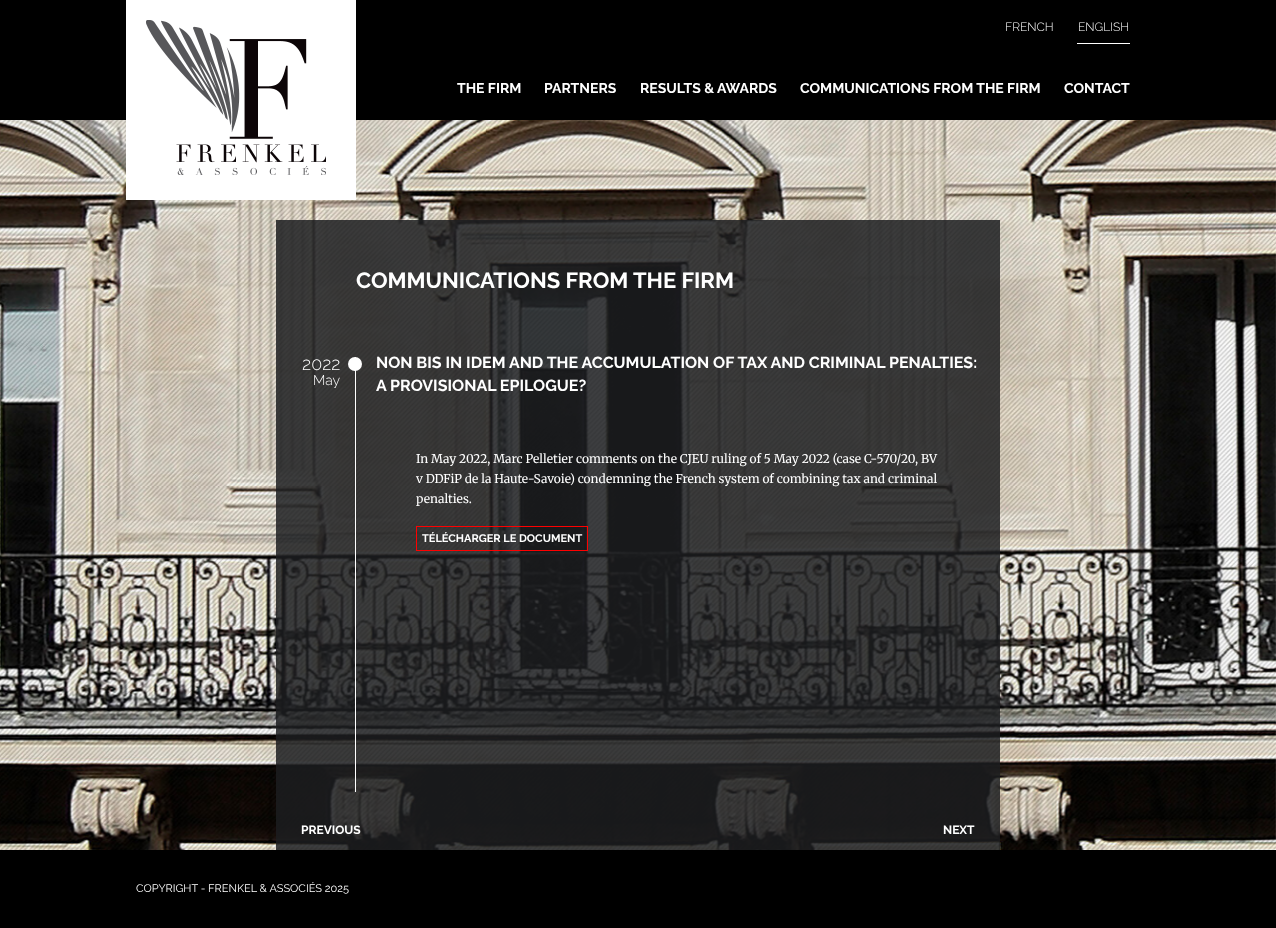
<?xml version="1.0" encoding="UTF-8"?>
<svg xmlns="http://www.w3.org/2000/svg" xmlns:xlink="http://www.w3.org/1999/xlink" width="1276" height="928">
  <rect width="100%" height="100%" fill="#ffffff" />
  <rect width="1276" height="120" fill="#000000" />
  <image x="0" y="120" width="1276" height="730" xlink:href="image2.png" />
  <rect x="126" width="230" height="200" fill="#ffffff" />
  <image x="146" y="20" width="180" height="155" xlink:href="image1.png" />
  <rect x="1077" y="43" width="53" height="1" fill="#ffffff" />
  <rect x="276" y="220" width="724" height="630" fill="#1c1d20" fill-opacity="0.85" />
  <rect x="355" y="357" width="1" height="435" fill="#ffffff" />
  <circle cx="355" cy="364" r="7" fill="#ffffff" />
  <rect x="416.5" y="526.5" width="171" height="24" fill="none" stroke="#ff0000" />
  <rect y="850" width="1276" height="78" fill="#000000" />
  <text x="1005" y="31" style="font-family: Raleway; font-size: 12px; font-weight: 300; fill: #ffffff">FRENCH</text>
  <text x="1078" y="31" style="font-family: Raleway; font-size: 12px; font-weight: 300; fill: #ffffff">ENGLISH</text>
  <text x="457" y="93" style="font-family: Raleway; font-size: 14px; font-weight: bold; fill: #ffffff">THE FIRM</text>
  <text x="544" y="93" style="font-family: Raleway; font-size: 14px; font-weight: bold; fill: #ffffff">PARTNERS</text>
  <text x="640" y="93" style="font-family: Raleway; font-size: 14px; font-weight: bold; fill: #ffffff">RESULTS &amp; AWARDS</text>
  <text x="800" y="93" style="font-family: Raleway; font-size: 14px; font-weight: bold; fill: #ffffff">COMMUNICATIONS FROM THE FIRM</text>
  <text x="1064" y="93" style="font-family: Raleway; font-size: 14px; font-weight: bold; fill: #ffffff">CONTACT</text>
  <text x="356" y="288" style="font-family: Raleway; font-size: 22px; font-weight: bold; fill: #ffffff">COMMUNICATIONS FROM THE FIRM</text>
  <text x="302" y="370" style="font-family: Raleway; font-size: 18px; font-weight: 300; fill: #ffffff">2022</text>
  <text x="313" y="385" style="font-family: Raleway; font-size: 14px; font-weight: 300; fill: #ffffff">May</text>
  <text x="376" y="368" style="font-family: Raleway; font-size: 16px; font-weight: bold; fill: #ffffff">NON BIS IN IDEM AND THE ACCUMULATION OF TAX AND CRIMINAL PENALTIES:</text>
  <text x="376" y="391" style="font-family: Raleway; font-size: 16px; font-weight: bold; fill: #ffffff">A PROVISIONAL EPILOGUE?</text>
  <text x="416" y="463" style="font-family: Merriweather; font-size: 12px; fill: #ffffff">In May 2022, Marc Pelletier comments on the CJEU ruling of 5 May 2022 (case C-570/20, BV</text>
  <text x="416" y="483" style="font-family: Merriweather; font-size: 12px; fill: #ffffff">v DDFiP de la Haute-Savoie) condemning the French system of combining tax and criminal</text>
  <text x="416" y="503" style="font-family: Merriweather; font-size: 12px; fill: #ffffff">penalties.</text>
  <text x="422" y="542" style="font-family: Raleway; font-size: 11px; font-weight: bold; fill: #ffffff">TÉLÉCHARGER LE DOCUMENT</text>
  <text x="301" y="834" style="font-family: Raleway; font-size: 12px; font-weight: bold; fill: #ffffff">PREVIOUS</text>
  <text x="943" y="834" style="font-family: Raleway; font-size: 12px; font-weight: bold; fill: #ffffff">NEXT</text>
  <text x="136" y="892" style="font-family: Raleway; font-size: 11px; fill: #ffffff">COPYRIGHT - FRENKEL &amp; ASSOCIÉS 2025</text>
</svg>
